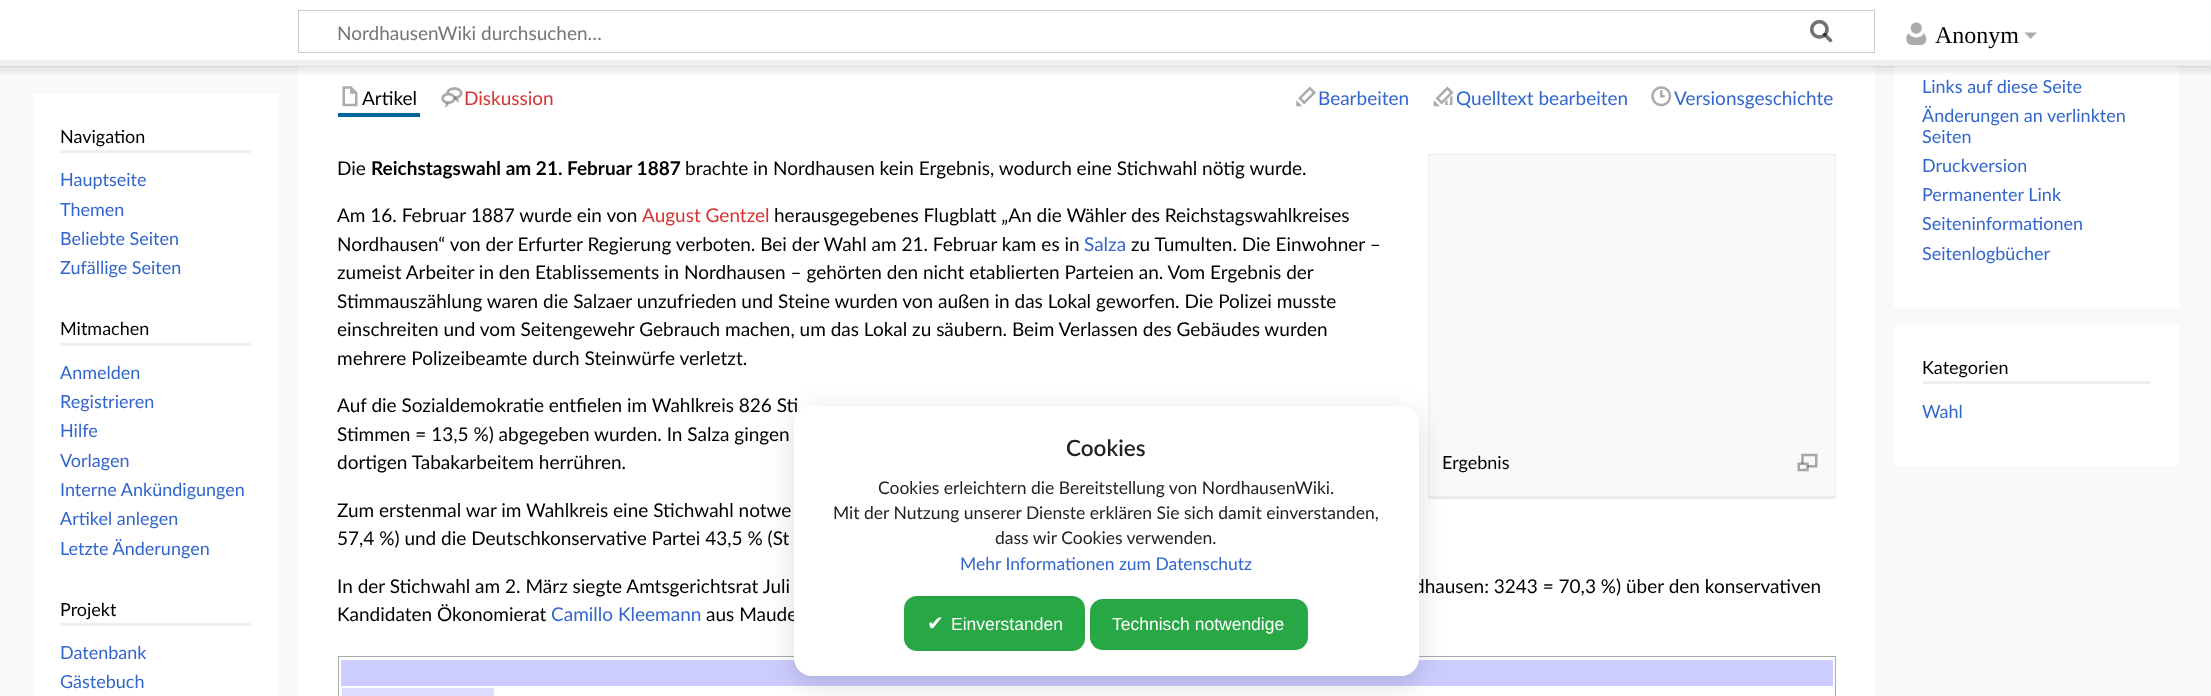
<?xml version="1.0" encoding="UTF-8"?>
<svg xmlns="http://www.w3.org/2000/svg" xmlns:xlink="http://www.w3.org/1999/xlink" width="2211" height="696">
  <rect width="100%" height="100%" fill="#f9f9f8" />
  <rect x="298" y="66" width="1577" height="630" fill="#ffffff" />
  <rect x="1895" y="66" width="283" height="239" fill="#ffffff" />
  <rect x="2178" y="66" width="1" height="242" fill="#ffffff" />
  <rect x="1894" y="305" width="285" height="3" fill="#ffffff" />
  <rect x="1894" y="66" width="1" height="242" fill="#ffffff" />
  <rect y="60" width="2211" height="6" fill="#000000" fill-opacity="0.2" filter="blur(1px)" />
  <rect x="-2" y="61" width="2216" height="12" fill="#000000" fill-opacity="0.07" filter="blur(2px)" />
  <rect width="2211" height="60" fill="#ffffff" />
  <rect x="298.5" y="10.5" width="1576" height="42" fill="none" stroke="#c8ccd1" />
  <image x="1810" y="20" width="23" height="23" xlink:href="image1.png" />
  <image x="1810" y="20" width="23" height="23" xlink:href="image2.png" />
  <image x="1906" y="22" width="21" height="23" xlink:href="image3.png" />
  <path d="M 2037 32.5 l -6.5 6.5 l -6 -6.5 z" fill="#ababab" />
  <rect y="60" width="2211" height="6" fill="#efefef" />
  <rect x="34" y="95" width="244" height="601" fill="#ffffff" />
  <rect x="33" y="94" width="246" height="1" fill="#ffffff" />
  <rect x="278" y="94" width="1" height="602" fill="#ffffff" />
  <rect x="33" y="94" width="1" height="602" fill="#ffffff" />
  <rect x="60" y="150" width="191" height="3" fill="#efefef" />
  <rect x="60" y="343" width="191" height="3" fill="#efefef" />
  <rect x="60" y="623" width="191" height="3" fill="#efefef" />
  <rect x="338" y="113" width="82" height="4" fill="#00669d" />
  <image x="342" y="86" width="16" height="21" xlink:href="image4.png" />
  <image x="441" y="87" width="22" height="21" xlink:href="image5.png" />
  <image x="1296" y="86" width="20" height="21" xlink:href="image6.png" />
  <image x="1433" y="86" width="21" height="21" xlink:href="image7.png" />
  <image x="1651" y="86" width="21" height="21" xlink:href="image8.png" />
  <rect x="1429" y="155" width="406" height="341" fill="#f8f9fa" />
  <rect x="1428" y="154" width="408" height="1" fill="#eaecf0" />
  <rect x="1428" y="496" width="408" height="3" fill="#eaecf0" />
  <rect x="1835" y="154" width="1" height="345" fill="#eaecf0" />
  <rect x="1428" y="154" width="1" height="345" fill="#eaecf0" />
  <image x="1797" y="453" width="21" height="19" xlink:href="image9.png" />
  <rect x="338.5" y="656.5" width="1497" height="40" fill="none" stroke="#aaaaaa" />
  <rect x="341" y="660" width="1492" height="26" fill="#ccccff" />
  <rect x="341" y="688" width="154" height="8" fill="#ddddff" />
  <rect x="341" y="686" width="1" height="10" fill="#ffffff" />
  <rect x="494" y="686" width="1" height="10" fill="#fdfdfd" />
  <rect x="1895" y="326" width="283" height="137" fill="#ffffff" />
  <rect x="1894" y="325" width="285" height="1" fill="#ffffff" />
  <rect x="2178" y="325" width="1" height="140" fill="#ffffff" />
  <rect x="1894" y="463" width="285" height="3" fill="#ffffff" />
  <rect x="1894" y="325" width="1" height="140" fill="#ffffff" />
  <rect x="1923" y="381" width="228" height="3" fill="#efefef" />
  <rect x="794" y="414" width="625" height="270" rx="18" fill="#000000" fill-opacity="0.14" filter="blur(14px)" />
  <text x="337" y="40" style="font-family: Lato; font-size: 19px; fill: #757575">NordhausenWiki durchsuchen…</text>
  <text x="1935" y="43" style="font-family: Liberation Serif; font-size: 24px; fill: #000000">Anonym</text>
  <text x="60" y="143" style="font-family: Lato; font-size: 18px; fill: #000000">Navigation</text>
  <text x="60" y="186" style="font-family: Lato; font-size: 18px; fill: #3366cc">Hauptseite</text>
  <text x="60" y="216" style="font-family: Lato; font-size: 18px; fill: #3366cc">Themen</text>
  <text x="60" y="245" style="font-family: Lato; font-size: 18px; fill: #3366cc">Beliebte Seiten</text>
  <text x="60" y="274" style="font-family: Lato; font-size: 18px; fill: #3366cc">Zufällige Seiten</text>
  <text x="60" y="335" style="font-family: Lato; font-size: 18px; fill: #000000">Mitmachen</text>
  <text x="60" y="379" style="font-family: Lato; font-size: 18px; fill: #3366cc">Anmelden</text>
  <text x="60" y="408" style="font-family: Lato; font-size: 18px; fill: #3366cc">Registrieren</text>
  <text x="60" y="437" style="font-family: Lato; font-size: 18px; fill: #3366cc">Hilfe</text>
  <text x="60" y="467" style="font-family: Lato; font-size: 18px; fill: #3366cc">Vorlagen</text>
  <text x="60" y="496" style="font-family: Lato; font-size: 18px; fill: #3366cc">Interne Ankündigungen</text>
  <text x="60" y="525" style="font-family: Lato; font-size: 18px; fill: #3366cc">Artikel anlegen</text>
  <text x="60" y="555" style="font-family: Lato; font-size: 18px; fill: #3366cc">Letzte Änderungen</text>
  <text x="60" y="616" style="font-family: Lato; font-size: 18px; fill: #000000">Projekt</text>
  <text x="60" y="659" style="font-family: Lato; font-size: 18px; fill: #3366cc">Datenbank</text>
  <text x="60" y="688" style="font-family: Lato; font-size: 18px; fill: #3366cc">Gästebuch</text>
  <text x="362" y="105" style="font-family: Lato; font-size: 19px; fill: #000000">Artikel</text>
  <text x="464" y="105" style="font-family: Lato; font-size: 19px; fill: #d73333">Diskussion</text>
  <text x="1318" y="105" style="font-family: Lato; font-size: 19px; fill: #3366cc">Bearbeiten</text>
  <text x="1456" y="105" style="font-family: Lato; font-size: 19px; fill: #3366cc">Quelltext bearbeiten</text>
  <text x="1674" y="105" style="font-family: Lato; font-size: 19px; fill: #3366cc">Versionsgeschichte</text>
  <text x="337" y="175" style="font-family: Lato; font-size: 19px; fill: #000000">Die</text>
  <text x="371" y="175" style="font-family: Lato; font-size: 19px; font-weight: bold; fill: #000000">Reichstagswahl am 21. Februar 1887</text>
  <text x="685" y="175" style="font-family: Lato; font-size: 19px; fill: #000000">brachte in Nordhausen kein Ergebnis, wodurch eine Stichwahl nötig wurde.</text>
  <text x="337" y="222" style="font-family: Lato; font-size: 19px; fill: #000000">Am 16. Februar 1887 wurde ein von</text>
  <text x="642" y="222" style="font-family: Lato; font-size: 19px; fill: #d73333">August Gentzel</text>
  <text x="774" y="222" style="font-family: Lato; font-size: 19px; fill: #000000">herausgegebenes Flugblatt „An die Wähler des Reichstagswahlkreises</text>
  <text x="337" y="251" style="font-family: Lato; font-size: 19px; fill: #000000">Nordhausen“ von der Erfurter Regierung verboten. Bei der Wahl am 21. Februar kam es in</text>
  <text x="1084" y="251" style="font-family: Lato; font-size: 19px; fill: #3366cc">Salza</text>
  <text x="1131" y="251" style="font-family: Lato; font-size: 19px; fill: #000000">zu Tumulten. Die Einwohner –</text>
  <text x="337" y="279" style="font-family: Lato; font-size: 19px; fill: #000000">zumeist Arbeiter in den Etablissements in Nordhausen – gehörten den nicht etablierten Parteien an. Vom Ergebnis der</text>
  <text x="337" y="308" style="font-family: Lato; font-size: 19px; fill: #000000">Stimmauszählung waren die Salzaer unzufrieden und Steine wurden von außen in das Lokal geworfen. Die Polizei musste</text>
  <text x="337" y="336" style="font-family: Lato; font-size: 19px; fill: #000000">einschreiten und vom Seitengewehr Gebrauch machen, um das Lokal zu säubern. Beim Verlassen des Gebäudes wurden</text>
  <text x="337" y="365" style="font-family: Lato; font-size: 19px; fill: #000000">mehrere Polizeibeamte durch Steinwürfe verletzt.</text>
  <text x="337" y="412" style="font-family: Lato; font-size: 19px; fill: #000000">Auf die Sozialdemokratie entfielen im Wahlkreis 826 Sti</text>
  <text x="337" y="441" style="font-family: Lato; font-size: 19px; fill: #000000">Stimmen = 13,5 %) abgegeben wurden. In Salza gingen</text>
  <text x="337" y="469" style="font-family: Lato; font-size: 19px; fill: #000000">dortigen Tabakarbeitem herrühren.</text>
  <text x="1442" y="469" style="font-family: Lato; font-size: 18px; fill: #000000">Ergebnis</text>
  <text x="337" y="517" style="font-family: Lato; font-size: 19px; fill: #000000">Zum erstenmal war im Wahlkreis eine Stichwahl notwe</text>
  <text x="337" y="545" style="font-family: Lato; font-size: 19px; fill: #000000">57,4 %) und die Deutschkonservative Partei 43,5 % (St</text>
  <text x="337" y="593" style="font-family: Lato; font-size: 19px; fill: #000000">In der Stichwahl am 2. März siegte Amtsgerichtsrat Juli</text>
  <text x="1414" y="593" style="font-family: Lato; font-size: 19px; fill: #000000">dhausen: 3243 = 70,3 %) über den konservativen</text>
  <text x="337" y="621" style="font-family: Lato; font-size: 19px; fill: #000000">Kandidaten Ökonomierat</text>
  <text x="551" y="621" style="font-family: Lato; font-size: 19px; fill: #3366cc">Camillo Kleemann</text>
  <text x="706" y="621" style="font-family: Lato; font-size: 19px; fill: #000000">aus Maude</text>
  <text x="1922" y="93" style="font-family: Lato; font-size: 18px; fill: #3366cc">Links auf diese Seite</text>
  <text x="1922" y="122" style="font-family: Lato; font-size: 18px; fill: #3366cc">Änderungen an verlinkten</text>
  <text x="1922" y="143" style="font-family: Lato; font-size: 18px; fill: #3366cc">Seiten</text>
  <text x="1922" y="172" style="font-family: Lato; font-size: 18px; fill: #3366cc">Druckversion</text>
  <text x="1922" y="201" style="font-family: Lato; font-size: 18px; fill: #3366cc">Permanenter Link</text>
  <text x="1922" y="230" style="font-family: Lato; font-size: 18px; fill: #3366cc">Seiteninformationen</text>
  <text x="1922" y="260" style="font-family: Lato; font-size: 18px; fill: #3366cc">Seitenlogbücher</text>
  <text x="1922" y="374" style="font-family: Lato; font-size: 18px; fill: #000000">Kategorien</text>
  <text x="1922" y="418" style="font-family: Lato; font-size: 18px; fill: #3366cc">Wahl</text>
  <rect x="794" y="406" width="625" height="270" rx="18" fill="#ffffff" />
  <text x="1066" y="456" style="font-family: Lato; font-size: 22.5px; font-weight: 600; fill: #222222">Cookies</text>
  <text x="878" y="494" style="font-family: Lato; font-size: 17.5px; fill: #222222">Cookies erleichtern die Bereitstellung von NordhausenWiki.</text>
  <text x="833" y="519" style="font-family: Lato; font-size: 17.5px; fill: #222222">Mit der Nutzung unserer Dienste erklären Sie sich damit einverstanden,</text>
  <text x="995" y="544" style="font-family: Lato; font-size: 17.5px; fill: #222222">dass wir Cookies verwenden.</text>
  <text x="960" y="570" style="font-family: Lato; font-size: 17.5px; fill: #3366cc">Mehr Informationen zum Datenschutz</text>
  <rect x="904" y="596" width="181" height="55" rx="13" fill="#28a745" />
  <path d="M 916 598 h 156 c 7 0 13 5 13 12 c 0 -20 -27 -14 -39 -14 h -103 c -12 0 -39 -6 -39 14 c 0 -7 5 -12 12 -12 z" fill="#000000" fill-opacity="0.04" />
  <text x="927" y="630" style="font-family: DejaVu Sans; font-size: 20px; fill: #ffffff">✔</text>
  <text x="951" y="630" style="font-family: Liberation Sans; font-size: 17.5px; fill: #ffffff">Einverstanden</text>
  <rect x="1090" y="599" width="218" height="51" rx="13" fill="#28a745" />
  <path d="M 1102 600 h 193 c 7 0 13 6 13 12 c 0 -7 -6 -13 -13 -13 h -192 c -7 0 -13 6 -13 13 c 0 -6 6 -12 12 -12 z" fill="#000000" fill-opacity="0.04" />
  <text x="1112" y="630" style="font-family: Liberation Sans; font-size: 17.5px; fill: #ffffff">Technisch notwendige</text>
</svg>
